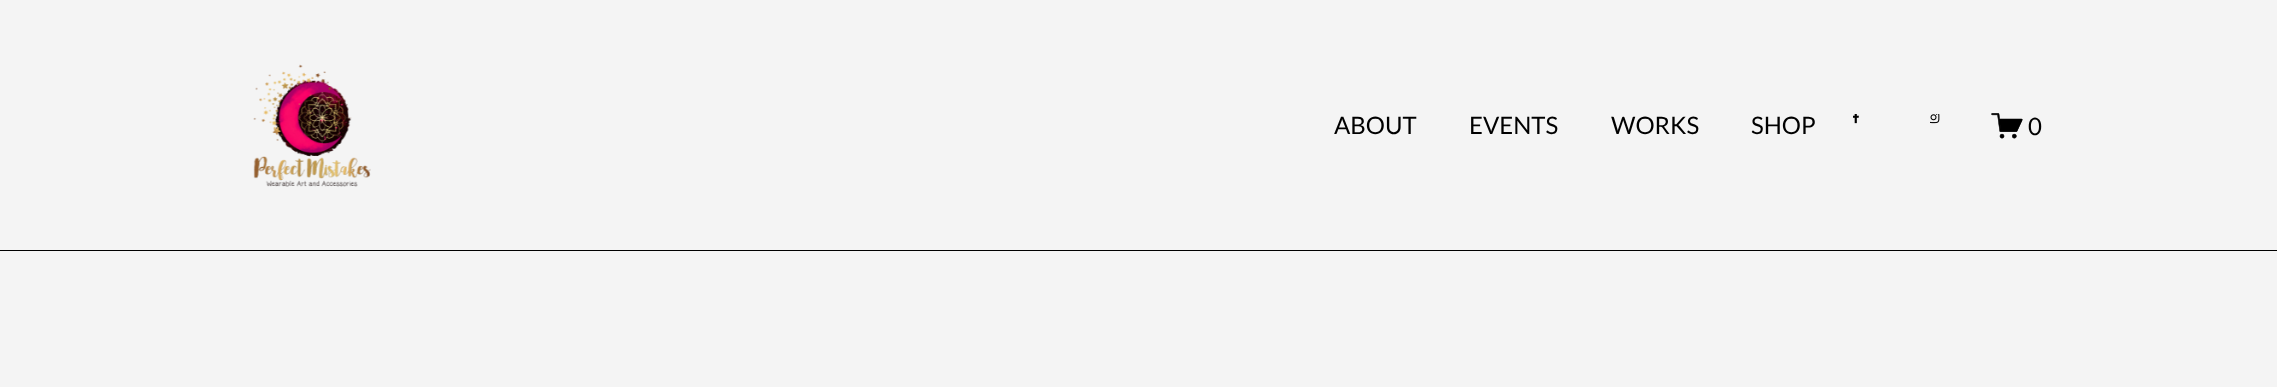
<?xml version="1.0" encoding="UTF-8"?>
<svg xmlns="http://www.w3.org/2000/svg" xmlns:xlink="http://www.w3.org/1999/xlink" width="2277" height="387">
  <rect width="100%" height="100%" fill="#f4f4f4" />
  <image x="253" y="64" width="118" height="123" xlink:href="image1.png" />
  <image x="1853" y="114" width="6" height="10" xlink:href="image2.png" />
  <image x="1930" y="114" width="10" height="10" xlink:href="image3.png" />
  <image x="1991" y="113" width="32" height="26" xlink:href="image4.png" />
  <rect y="250" width="2277" height="1" fill="#000000" />
  <text x="1334" y="134" style="font-family: Lato; font-size: 24px; fill: #000000">ABOUT</text>
  <text x="1469" y="134" style="font-family: Lato; font-size: 24px; fill: #000000">EVENTS</text>
  <text x="1611" y="134" style="font-family: Lato; font-size: 24px; fill: #000000">WORKS</text>
  <text x="1751" y="134" style="font-family: Lato; font-size: 24px; fill: #000000">SHOP</text>
  <text x="2028" y="135" style="font-family: Lato; font-size: 24px; fill: #000000">0</text>
</svg>
